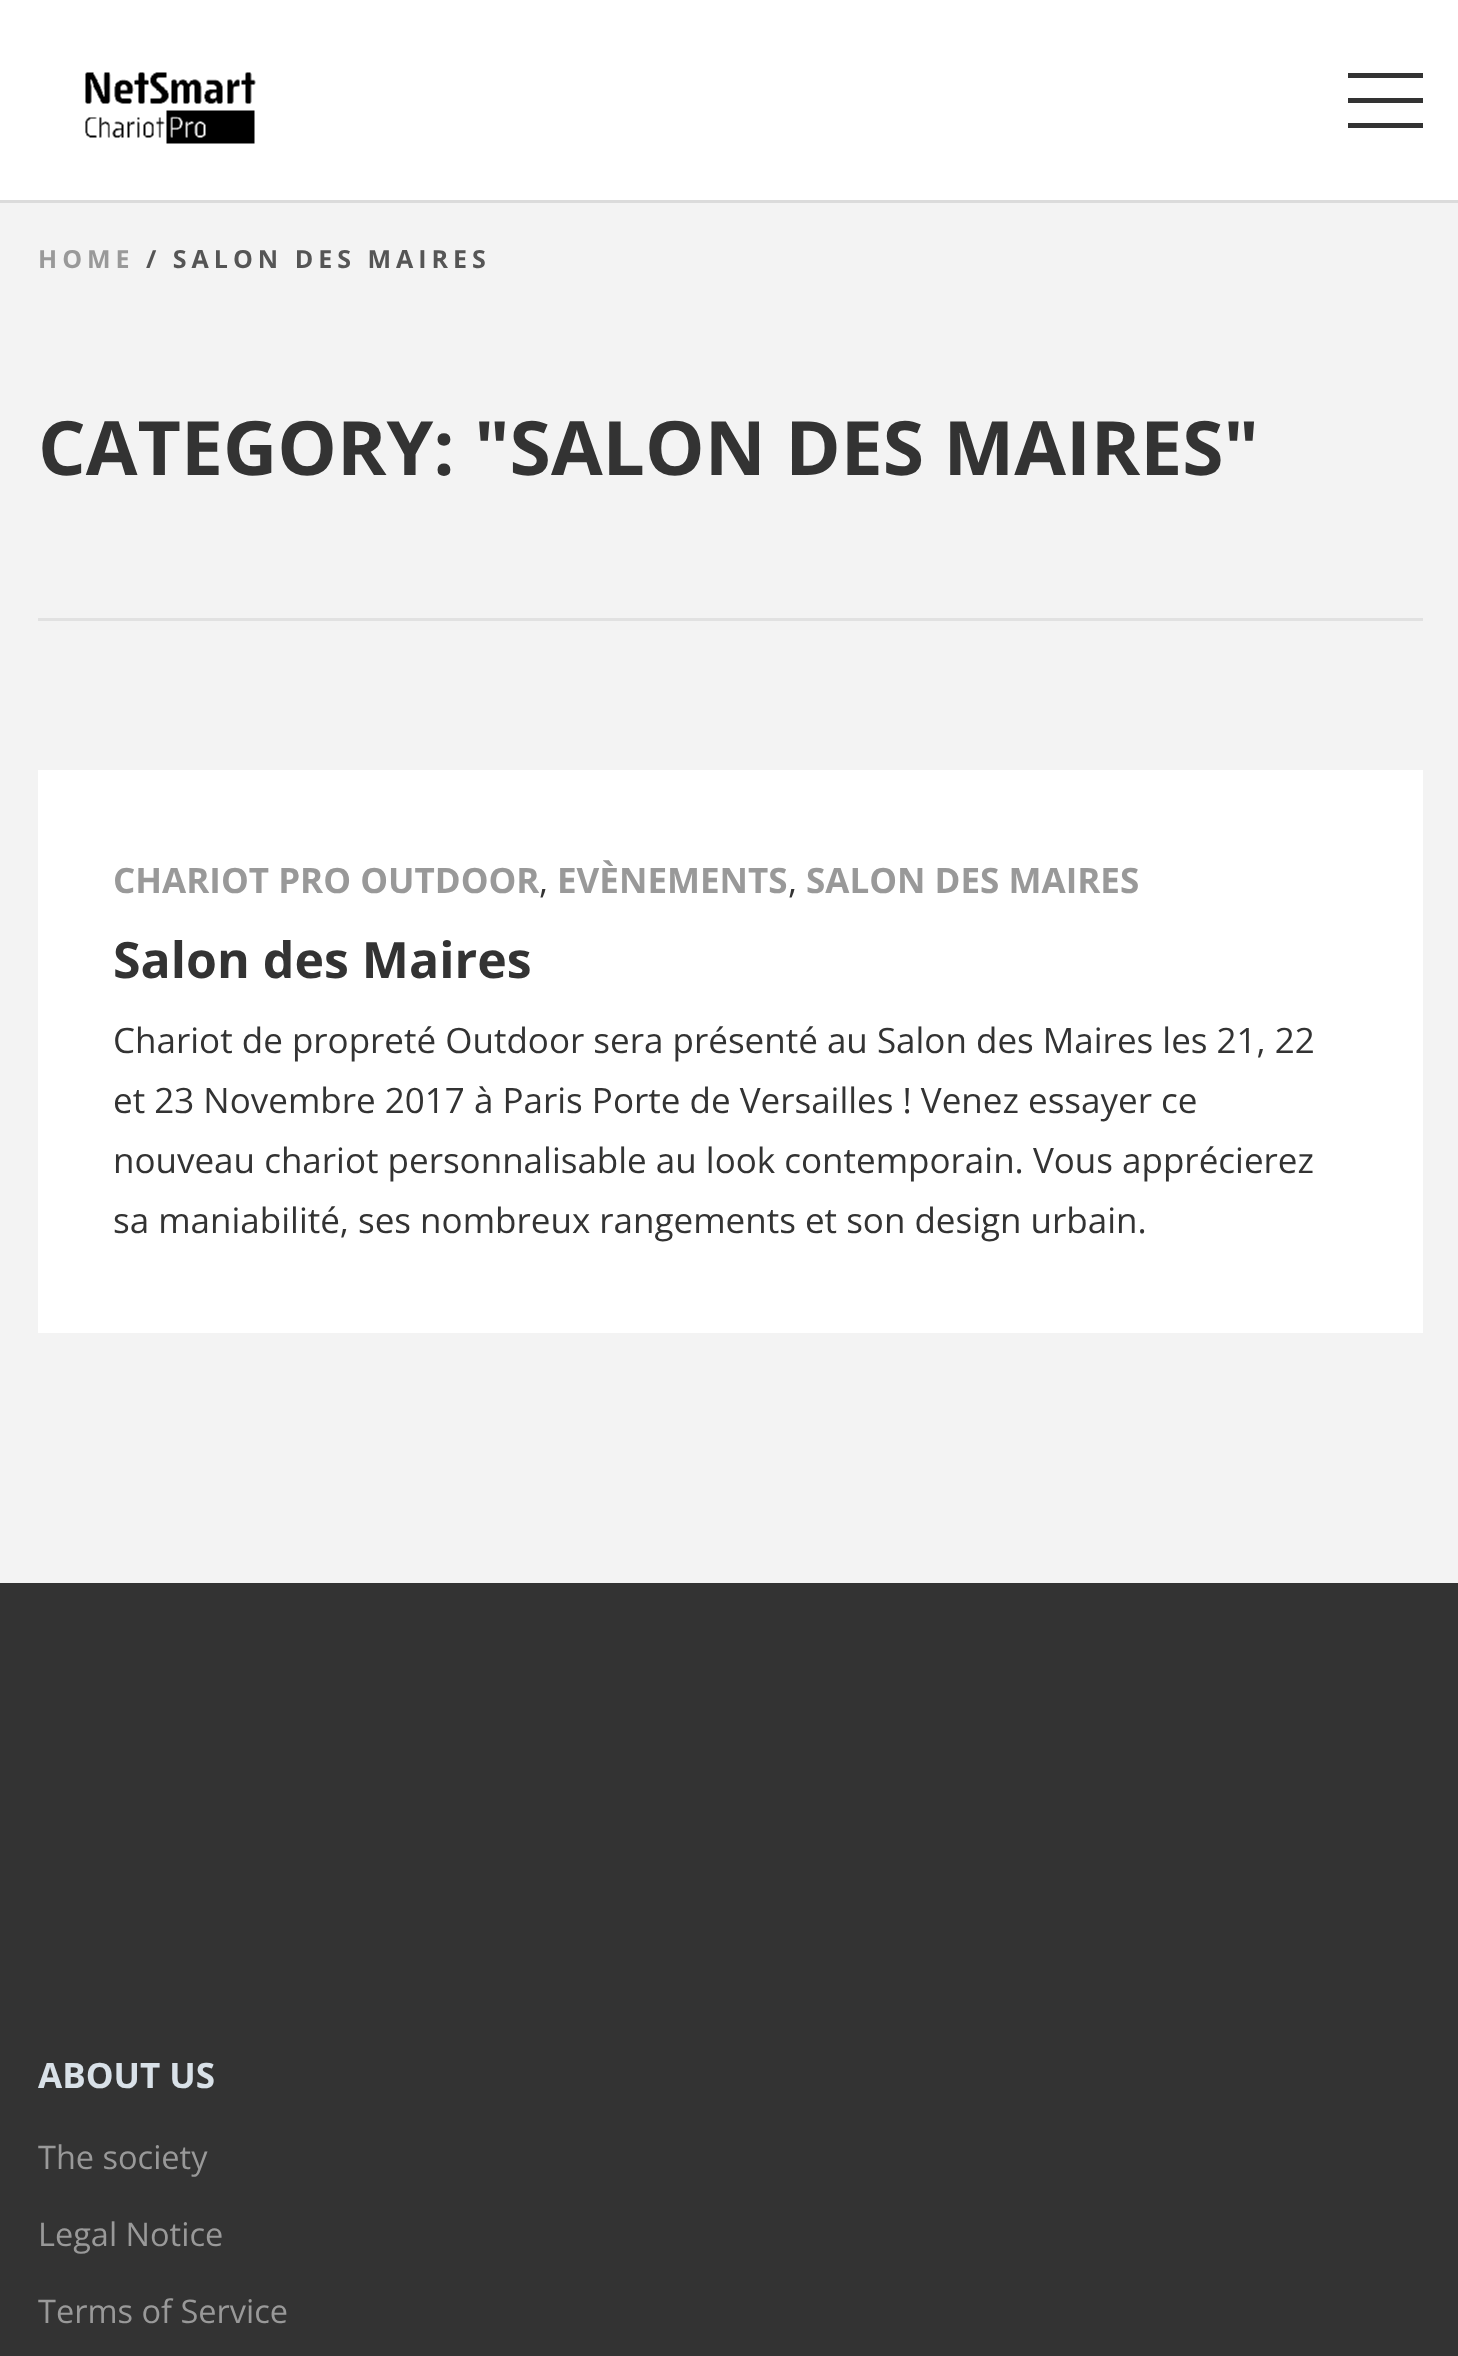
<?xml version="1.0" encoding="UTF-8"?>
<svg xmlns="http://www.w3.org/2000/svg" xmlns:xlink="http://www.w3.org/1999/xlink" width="1458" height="2356">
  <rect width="100%" height="100%" fill="#f3f3f3" />
  <rect y="200" width="1458" height="3" fill="#dbdbdb" />
  <rect width="1458" height="200" fill="#ffffff" />
  <image x="85" y="72" width="171" height="72" xlink:href="image1.png" />
  <rect x="1348" y="73" width="75" height="5" fill="#333333" />
  <rect x="1348" y="98" width="75" height="5" fill="#333333" />
  <rect x="1348" y="123" width="75" height="5" fill="#333333" />
  <rect x="38" y="618" width="1385" height="3" fill="#e1e1e1" />
  <rect x="38" y="770" width="1385" height="563" fill="#ffffff" />
  <rect y="1583" width="1458" height="773" fill="#333333" />
  <text x="38" y="268" style="font-family: Open Sans; font-size: 25px; font-weight: bold; letter-spacing: 5px; fill: #999999">HOME</text>
  <text x="146" y="268" style="font-family: Open Sans; font-size: 25px; font-weight: bold; letter-spacing: 5px; fill: #555555">/ SALON DES MAIRES</text>
  <text x="38" y="475" style="font-family: Open Sans; font-size: 75px; font-weight: bold; fill: #333333">CATEGORY: "SALON DES MAIRES"</text>
  <text x="113" y="893" style="font-family: Open Sans; font-size: 35px; font-weight: bold; fill: #999999">CHARIOT PRO OUTDOOR</text>
  <text x="539" y="893" style="font-family: Open Sans; font-size: 35px; fill: #333333">,</text>
  <text x="557" y="893" style="font-family: Open Sans; font-size: 35px; font-weight: bold; fill: #999999">EVÈNEMENTS</text>
  <text x="788" y="893" style="font-family: Open Sans; font-size: 35px; fill: #333333">,</text>
  <text x="806" y="893" style="font-family: Open Sans; font-size: 35px; font-weight: bold; fill: #999999">SALON DES MAIRES</text>
  <text x="113" y="978" style="font-family: Open Sans; font-size: 50px; font-weight: bold; fill: #333333">Salon des Maires</text>
  <text x="113" y="1053" style="font-family: Open Sans; font-size: 35px; fill: #333333">Chariot de propreté Outdoor sera présenté au Salon des Maires les 21, 22</text>
  <text x="113" y="1113" style="font-family: Open Sans; font-size: 35px; fill: #333333">et 23 Novembre 2017 à Paris Porte de Versailles ! Venez essayer ce</text>
  <text x="113" y="1173" style="font-family: Open Sans; font-size: 35px; fill: #333333">nouveau chariot personnalisable au look contemporain. Vous apprécierez</text>
  <text x="113" y="1233" style="font-family: Open Sans; font-size: 35px; fill: #333333">sa maniabilité, ses nombreux rangements et son design urbain.</text>
  <text x="38" y="2088" style="font-family: Open Sans; font-size: 35px; font-weight: bold; fill: #d9e1e8">ABOUT US</text>
  <text x="38" y="2169" style="font-family: Open Sans; font-size: 32.5px; fill: #999999">The society</text>
  <text x="38" y="2246" style="font-family: Open Sans; font-size: 32.5px; fill: #999999">Legal Notice</text>
  <text x="38" y="2323" style="font-family: Open Sans; font-size: 32.5px; fill: #999999">Terms of Service</text>
</svg>
